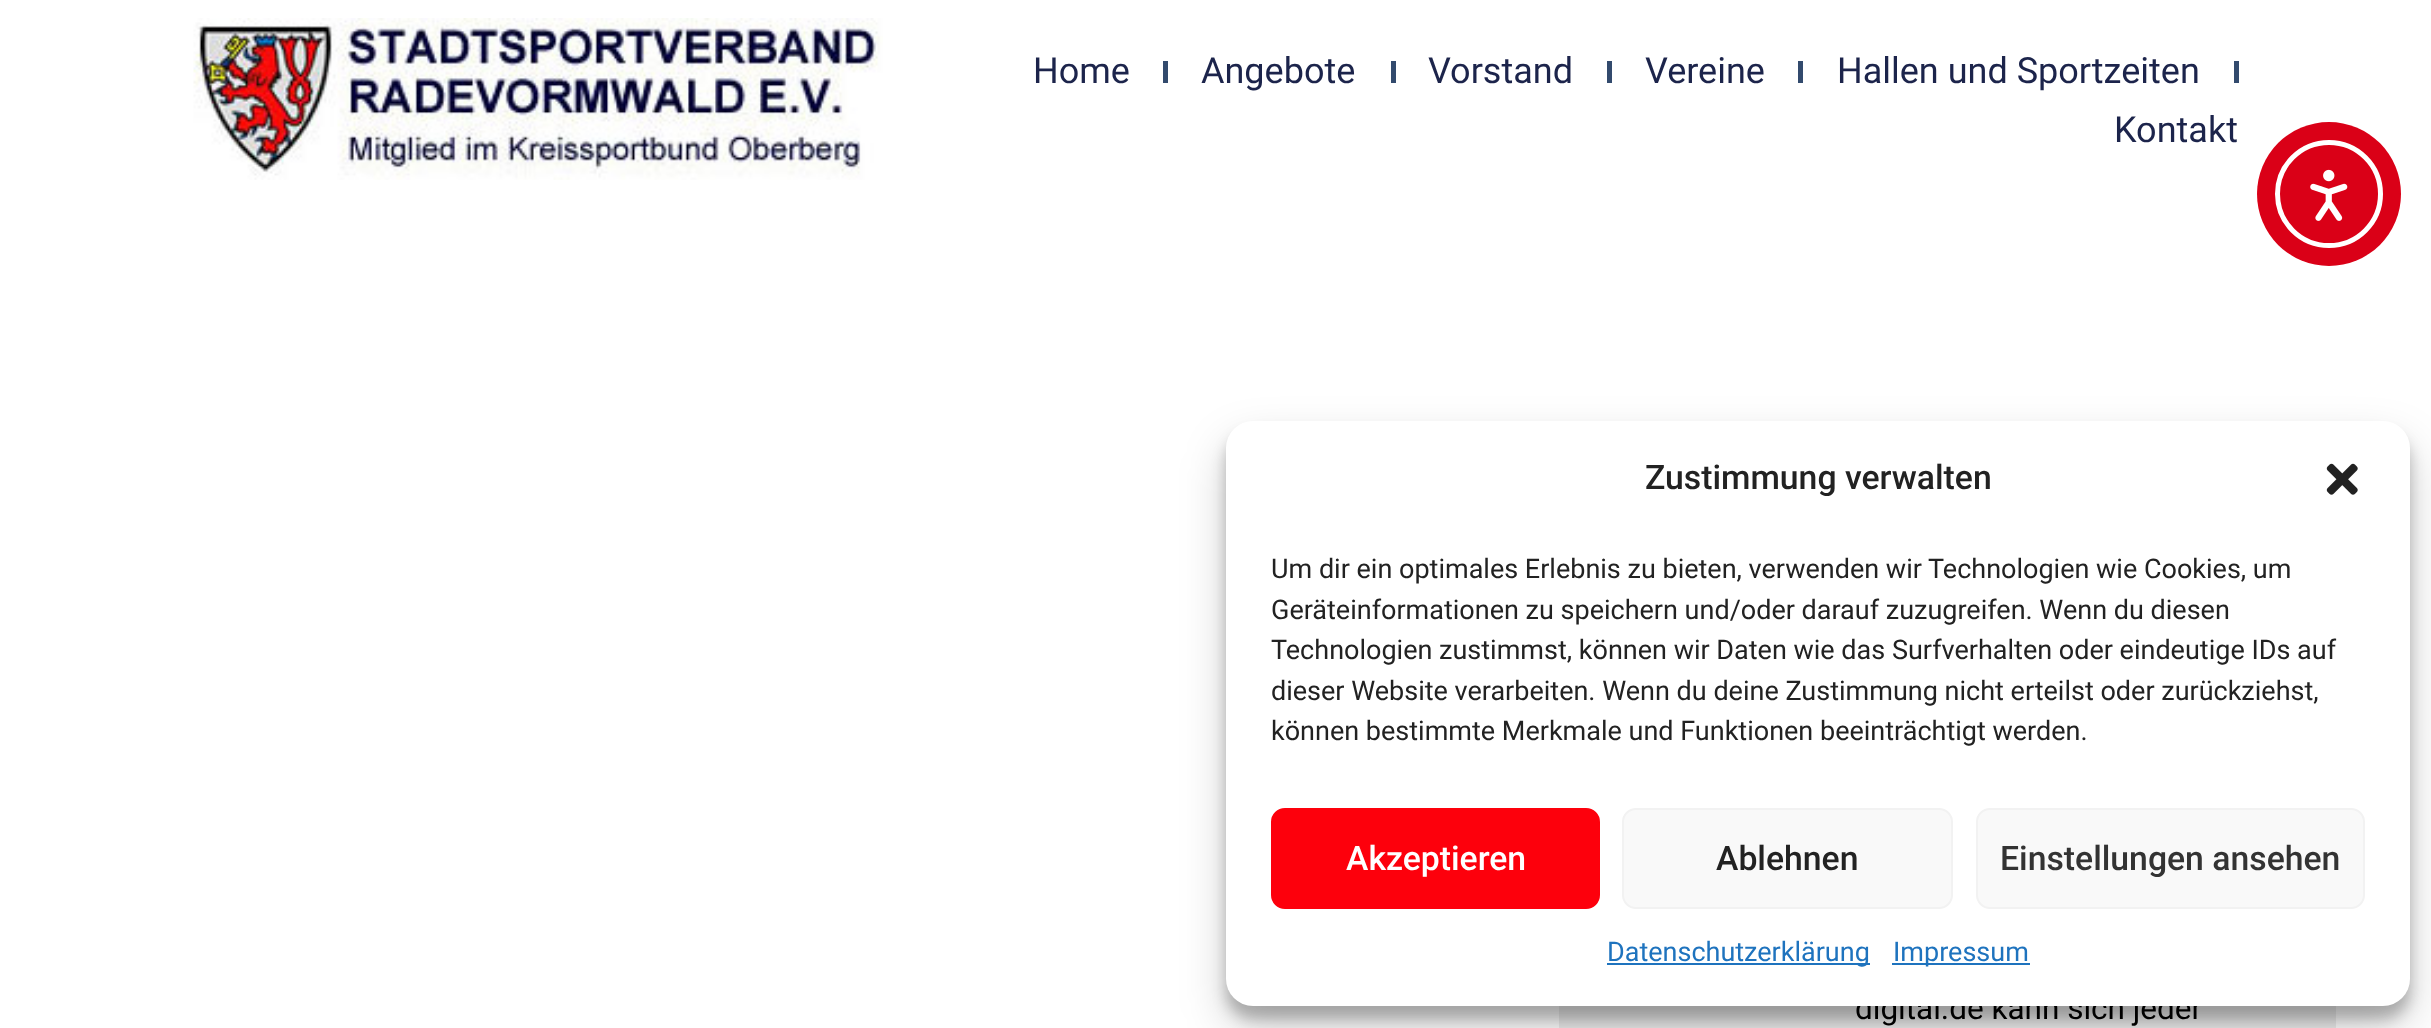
<?xml version="1.0" encoding="UTF-8"?>
<svg xmlns="http://www.w3.org/2000/svg" xmlns:xlink="http://www.w3.org/1999/xlink" width="2431" height="1028">
  <rect width="100%" height="100%" fill="#ffffff" />
  <image x="193" y="18" width="690" height="162" xlink:href="image1.png" />
  <rect x="1163" y="61" width="5" height="22" fill="#324a6d" />
  <rect x="1391" y="61" width="5" height="22" fill="#324a6d" />
  <rect x="1607" y="61" width="5" height="22" fill="#324a6d" />
  <rect x="1798" y="61" width="5" height="22" fill="#324a6d" />
  <rect x="2234" y="61" width="5" height="22" fill="#324a6d" />
  <rect x="1559" y="1006" width="777" height="22" fill="#eeeeee" />
  <circle cx="2329" cy="194" r="72" fill="#da0017" />
  <circle cx="2329" cy="194" r="51.5" fill="none" stroke="#ffffff" stroke-width="5" />
  <image x="2310" y="169" width="38" height="52" xlink:href="image2.png" />
  <rect x="1226" y="434" width="1184" height="585" rx="27" fill="#000000" fill-opacity="0.23" filter="blur(7px)" />
  <rect x="1226" y="443" width="1184" height="585" rx="27" fill="#000000" fill-opacity="0.19" filter="blur(22.5px)" />
  <text x="1033" y="83" style="font-family: Roboto; font-size: 36px; fill: #1c244b">Home</text>
  <text x="1201" y="83" style="font-family: Roboto; font-size: 36px; fill: #1c244b">Angebote</text>
  <text x="1428" y="83" style="font-family: Roboto; font-size: 36px; fill: #1c244b">Vorstand</text>
  <text x="1645" y="83" style="font-family: Roboto; font-size: 36px; fill: #1c244b">Vereine</text>
  <text x="1837" y="83" style="font-family: Roboto; font-size: 36px; fill: #1c244b">Hallen und Sportzeiten</text>
  <text x="2114" y="142" style="font-family: Roboto; font-size: 36px; fill: #1c244b">Kontakt</text>
  <text x="1855" y="1019" style="font-family: Roboto; font-size: 31.5px; fill: #000000">digital.de kann sich jeder</text>
  <rect x="1226" y="421" width="1184" height="585" rx="27" fill="#ffffff" />
  <text x="1645" y="489" style="font-family: Roboto; font-size: 33.75px; font-weight: 500; fill: #222222">Zustimmung verwalten</text>
  <image x="2326" y="463" width="32" height="32" xlink:href="image3.png" />
  <text x="1271" y="578" style="font-family: Roboto; font-size: 27px; fill: #222222">Um dir ein optimales Erlebnis zu bieten, verwenden wir Technologien wie Cookies, um</text>
  <text x="1271" y="619" style="font-family: Roboto; font-size: 27px; fill: #222222">Geräteinformationen zu speichern und/oder darauf zuzugreifen. Wenn du diesen</text>
  <text x="1271" y="659" style="font-family: Roboto; font-size: 27px; fill: #222222">Technologien zustimmst, können wir Daten wie das Surfverhalten oder eindeutige IDs auf</text>
  <text x="1271" y="700" style="font-family: Roboto; font-size: 27px; fill: #222222">dieser Website verarbeiten. Wenn du deine Zustimmung nicht erteilst oder zurückziehst,</text>
  <text x="1271" y="740" style="font-family: Roboto; font-size: 27px; fill: #222222">können bestimmte Merkmale und Funktionen beeinträchtigt werden.</text>
  <rect x="1272" y="809" width="327" height="99" rx="13" fill="#fd000c" stroke="#fd000c" stroke-width="2" />
  <text x="1346" y="870" style="font-family: Roboto; font-size: 33.75px; font-weight: 500; fill: #ffffff">Akzeptieren</text>
  <rect x="1623" y="809" width="329" height="99" rx="13" fill="#f9f9f9" stroke="#f2f2f2" stroke-width="2" />
  <text x="1716" y="870" style="font-family: Roboto; font-size: 33.75px; font-weight: 500; fill: #222222">Ablehnen</text>
  <rect x="1977" y="809" width="387" height="99" rx="13" fill="#f9f9f9" stroke="#f2f2f2" stroke-width="2" />
  <text x="2000" y="870" style="font-family: Roboto; font-size: 33.75px; font-weight: 500; fill: #333333">Einstellungen ansehen</text>
  <rect x="1607" y="963" width="263" height="2" fill="#1e73be" />
  <text x="1607" y="961" style="font-family: Roboto; font-size: 27px; fill: #1e73be">Datenschutzerklärung</text>
  <rect x="1892" y="963" width="138" height="2" fill="#1e73be" />
  <text x="1893" y="961" style="font-family: Roboto; font-size: 27px; fill: #1e73be">Impressum</text>
</svg>
